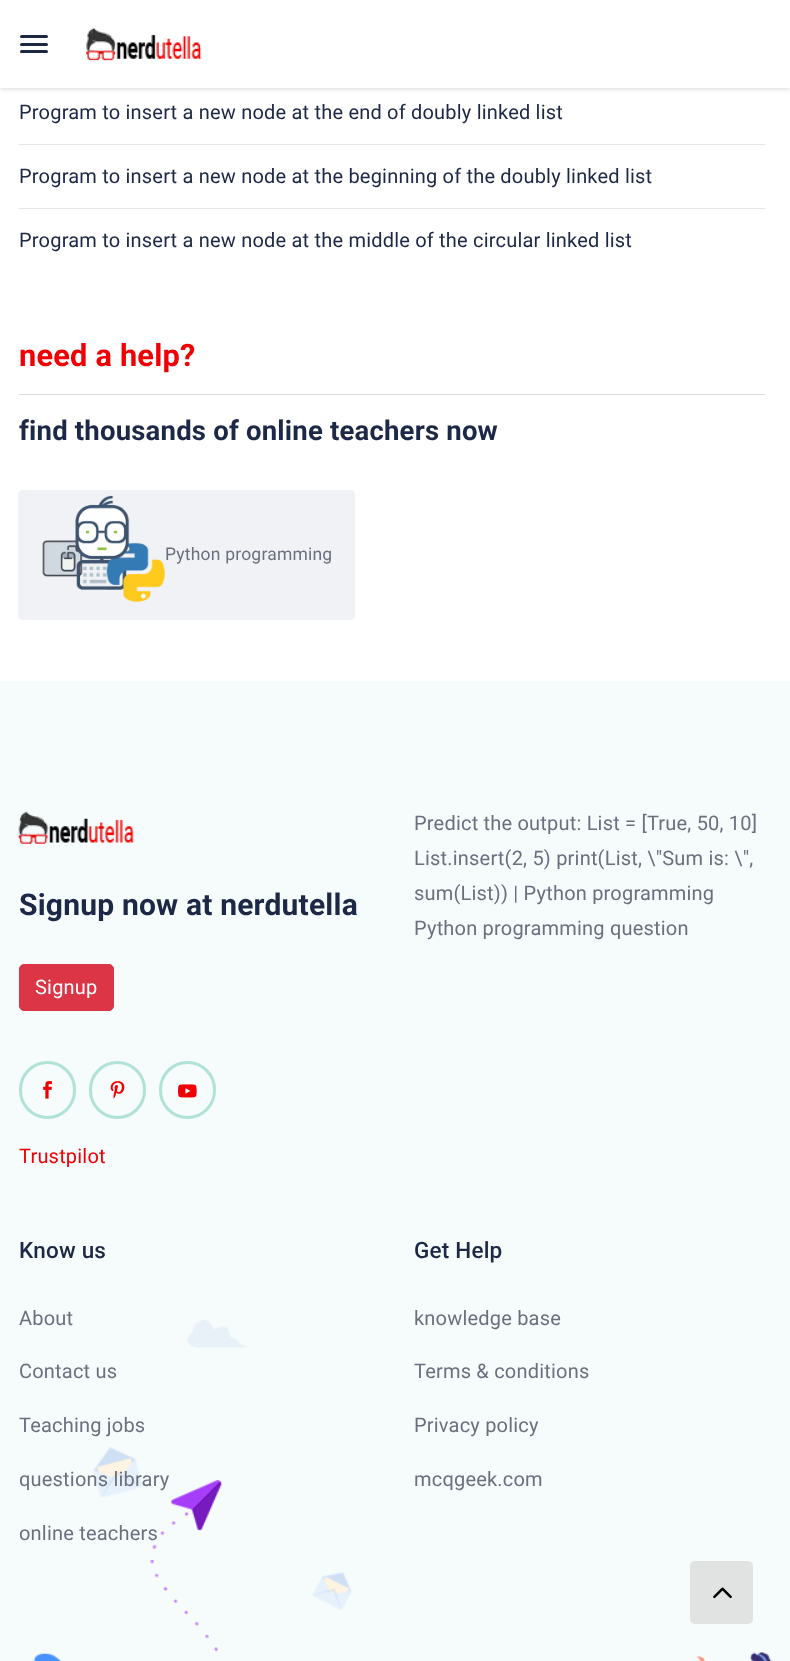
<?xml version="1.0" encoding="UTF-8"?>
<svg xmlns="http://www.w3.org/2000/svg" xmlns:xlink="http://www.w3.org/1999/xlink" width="790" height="1661">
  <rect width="100%" height="100%" fill="#ffffff" />
  <rect y="1" width="790" height="88" fill="#000000" fill-opacity="0.15" filter="blur(2.5px)" />
  <rect width="790" height="88" fill="#ffffff" />
  <rect x="20" y="35" width="28" height="3" rx="1.5" fill="#1d2746" />
  <rect x="20" y="43" width="28" height="3" rx="1.5" fill="#1d2746" />
  <rect x="20" y="50" width="28" height="3" rx="1.5" fill="#1d2746" />
  <image x="86" y="27" width="116" height="34" xlink:href="image1.png" />
  <rect x="19" y="144" width="746" height="1" fill="#e4e7e9" />
  <rect x="19" y="208" width="746" height="1" fill="#e4e7e9" />
  <rect x="19" y="394" width="746" height="1" fill="#dadbdf" />
  <rect x="18" y="490" width="337" height="130" rx="5" fill="#f0f2f5" />
  <image x="42" y="495" width="123" height="107" xlink:href="image2.png" />
  <rect y="681" width="790" height="980" fill="#f6fbfc" />
  <image x="18" y="811" width="116" height="33" xlink:href="image3.png" />
  <rect x="19.5" y="964.5" width="94" height="46" rx="4.5" fill="#dc3545" stroke="#dc3545" />
  <rect x="20.5" y="1062.5" width="54" height="55" rx="27" fill="none" stroke="#b1e2d8" stroke-width="3" />
  <image x="43" y="1081" width="9" height="18" xlink:href="image4.png" />
  <rect x="90.5" y="1062.5" width="54" height="55" rx="27" fill="none" stroke="#b1e2d8" stroke-width="3" />
  <image x="110" y="1081" width="15" height="18" xlink:href="image5.png" />
  <rect x="160.5" y="1062.5" width="54" height="55" rx="27" fill="none" stroke="#b1e2d8" stroke-width="3" />
  <image x="178" y="1084" width="19" height="14" xlink:href="image6.png" />
  <image x="187" y="1320" width="61" height="28" xlink:href="image7.png" />
  <image x="93" y="1447" width="50" height="51" xlink:href="image8.png" />
  <image x="33" y="1480" width="189" height="181" xlink:href="image9.png" />
  <image x="312" y="1572" width="40" height="38" xlink:href="image10.png" />
  <image x="697" y="1652" width="75" height="9" xlink:href="image11.png" />
  <rect x="690" y="1561" width="63" height="63" rx="5" fill="#e1e2e2" />
  <image x="713" y="1587" width="19" height="12" xlink:href="image12.png" />
  <text x="19" y="119" style="font-family: Roboto; font-size: 20px; letter-spacing: 0.2px; fill: #1d2746">Program to insert a new node at the end of doubly linked list</text>
  <text x="19" y="183" style="font-family: Roboto; font-size: 20px; letter-spacing: 0.2px; fill: #1d2746">Program to insert a new node at the beginning of the doubly linked list</text>
  <text x="19" y="247" style="font-family: Roboto; font-size: 20px; letter-spacing: 0.2px; fill: #1d2746">Program to insert a new node at the middle of the circular linked list</text>
  <text x="19" y="366" style="font-family: Roboto; font-size: 30.75px; font-weight: bold; letter-spacing: 0.2px; fill: #f00003">need a help?</text>
  <text x="19" y="440" style="font-family: Roboto; font-size: 27.5px; font-weight: bold; letter-spacing: 0.2px; fill: #1d2746">find thousands of online teachers now</text>
  <text x="165" y="560" style="font-family: Roboto; font-size: 17.5px; letter-spacing: 0.2px; fill: #6b707f">Python programming</text>
  <text x="414" y="830" style="font-family: Roboto; font-size: 20px; letter-spacing: 0.2px; fill: #6b707f">Predict the output: List = [True, 50, 10]</text>
  <text x="414" y="865" style="font-family: Roboto; font-size: 20px; letter-spacing: 0.2px; fill: #6b707f">List.insert(2, 5) print(List, \"Sum is: \",</text>
  <text x="414" y="900" style="font-family: Roboto; font-size: 20px; letter-spacing: 0.2px; fill: #6b707f">sum(List)) | Python programming</text>
  <text x="414" y="935" style="font-family: Roboto; font-size: 20px; letter-spacing: 0.2px; fill: #6b707f">Python programming question</text>
  <text x="19" y="915" style="font-family: Roboto; font-size: 30px; font-weight: bold; letter-spacing: 0.2px; fill: #1d2746">Signup now at nerdutella</text>
  <text x="35" y="994" style="font-family: Roboto; font-size: 20px; letter-spacing: 0.2px; fill: #ffffff">Signup</text>
  <text x="19" y="1163" style="font-family: Roboto; font-size: 20px; letter-spacing: 0.2px; fill: #f00003">Trustpilot</text>
  <text x="19" y="1258" style="font-family: Roboto; font-size: 22.5px; font-weight: 500; letter-spacing: 0.2px; fill: #1d2746">Know us</text>
  <text x="19" y="1325" style="font-family: Roboto; font-size: 20px; letter-spacing: 0.2px; fill: #6b707f">About</text>
  <text x="19" y="1378" style="font-family: Roboto; font-size: 20px; letter-spacing: 0.2px; fill: #6b707f">Contact us</text>
  <text x="19" y="1432" style="font-family: Roboto; font-size: 20px; letter-spacing: 0.2px; fill: #6b707f">Teaching jobs</text>
  <text x="19" y="1486" style="font-family: Roboto; font-size: 20px; letter-spacing: 0.2px; fill: #6b707f">questions library</text>
  <text x="19" y="1540" style="font-family: Roboto; font-size: 20px; letter-spacing: 0.2px; fill: #6b707f">online teachers</text>
  <text x="414" y="1258" style="font-family: Roboto; font-size: 22.5px; font-weight: 500; letter-spacing: 0.2px; fill: #1d2746">Get Help</text>
  <text x="414" y="1325" style="font-family: Roboto; font-size: 20px; letter-spacing: 0.2px; fill: #6b707f">knowledge base</text>
  <text x="414" y="1378" style="font-family: Roboto; font-size: 20px; letter-spacing: 0.2px; fill: #6b707f">Terms &amp; conditions</text>
  <text x="414" y="1432" style="font-family: Roboto; font-size: 20px; letter-spacing: 0.2px; fill: #6b707f">Privacy policy</text>
  <text x="414" y="1486" style="font-family: Roboto; font-size: 20px; letter-spacing: 0.2px; fill: #6b707f">mcqgeek.com</text>
</svg>
